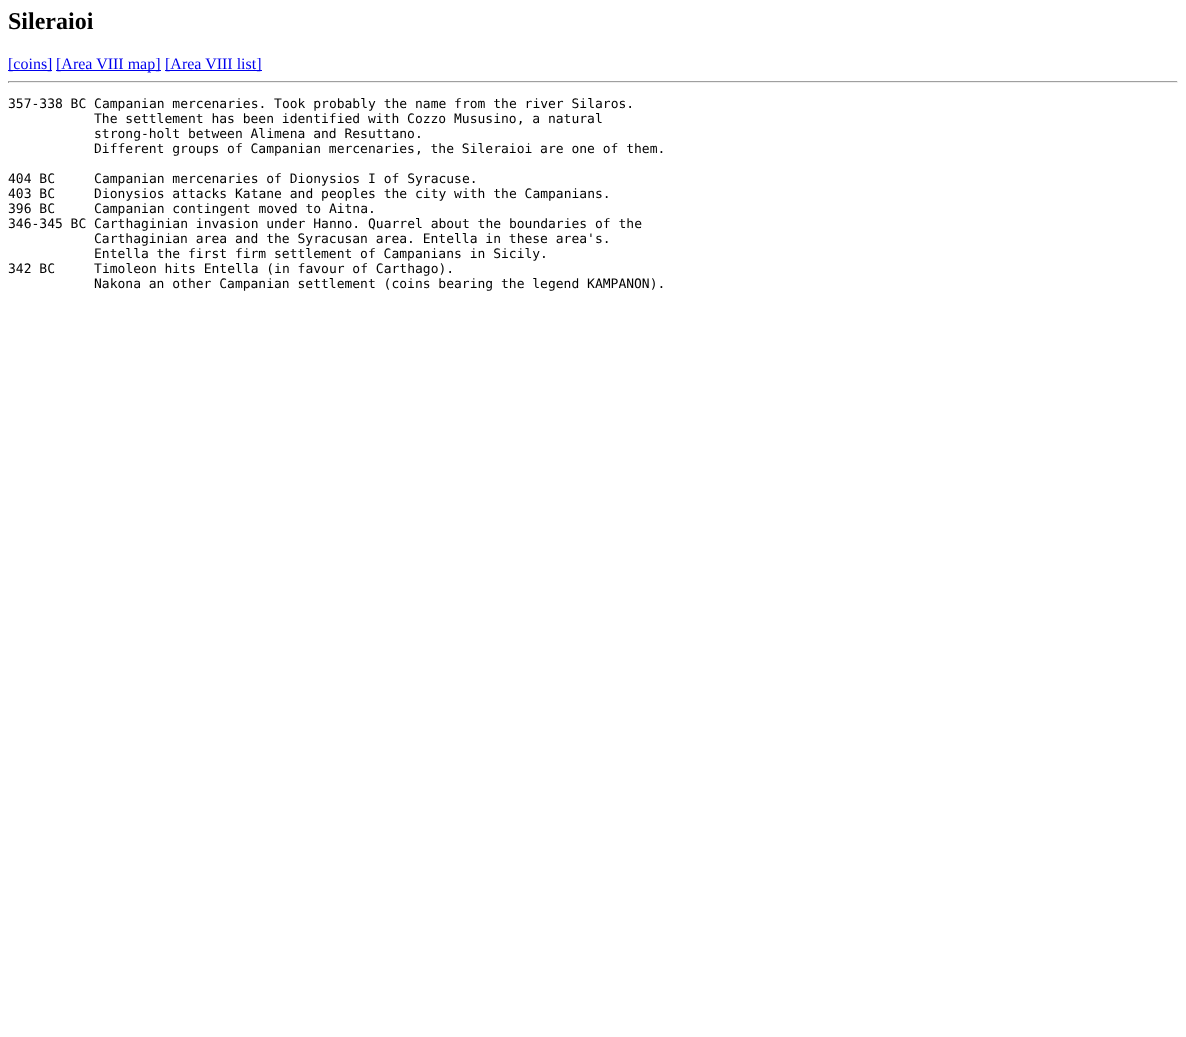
<?xml version="1.0" encoding="UTF-8"?>
<svg xmlns="http://www.w3.org/2000/svg" xmlns:xlink="http://www.w3.org/1999/xlink" width="1186" height="1037">
  <rect width="100%" height="100%" fill="#ffffff" />
  <rect x="8" y="70" width="44" height="1" fill="#0000ee" />
  <rect x="56" y="70" width="105" height="1" fill="#0000ee" />
  <rect x="165" y="70" width="97" height="1" fill="#0000ee" />
  <rect x="8" y="81" width="1170" height="1" fill="#9f9f9f" />
  <rect x="1177" y="81" width="1" height="2" fill="#eeeeee" />
  <rect x="8" y="82" width="1170" height="1" fill="#eeeeee" />
  <rect x="8" y="81" width="1" height="2" fill="#9f9f9f" />
  <text x="8" y="29" style="font-family: Liberation Serif; font-size: 24px; font-weight: bold; fill: #000000">Sileraioi</text>
  <text x="8" y="69" style="font-family: Liberation Serif; font-size: 16px; fill: #0000ee">[coins]</text>
  <text x="56" y="69" style="font-family: Liberation Serif; font-size: 16px; fill: #0000ee">[Area VIII map]</text>
  <text x="165" y="69" style="font-family: Liberation Serif; font-size: 16px; fill: #0000ee">[Area VIII list]</text>
  <text x="8" y="108" style="font-family: DejaVu Sans Mono; font-size: 13px; fill: #000000">357-338 BC Campanian mercenaries. Took probably the name from the river Silaros.</text>
  <text x="94" y="123" style="font-family: DejaVu Sans Mono; font-size: 13px; fill: #000000">The settlement has been identified with Cozzo Mususino, a natural</text>
  <text x="94" y="138" style="font-family: DejaVu Sans Mono; font-size: 13px; fill: #000000">strong-holt between Alimena and Resuttano.</text>
  <text x="94" y="153" style="font-family: DejaVu Sans Mono; font-size: 13px; fill: #000000">Different groups of Campanian mercenaries, the Sileraioi are one of them.</text>
  <text x="8" y="183" style="font-family: DejaVu Sans Mono; font-size: 13px; fill: #000000" xml:space="preserve">404 BC     Campanian mercenaries of Dionysios I of Syracuse.</text>
  <text x="8" y="198" style="font-family: DejaVu Sans Mono; font-size: 13px; fill: #000000" xml:space="preserve">403 BC     Dionysios attacks Katane and peoples the city with the Campanians.</text>
  <text x="8" y="213" style="font-family: DejaVu Sans Mono; font-size: 13px; fill: #000000" xml:space="preserve">396 BC     Campanian contingent moved to Aitna.</text>
  <text x="8" y="228" style="font-family: DejaVu Sans Mono; font-size: 13px; fill: #000000">346-345 BC Carthaginian invasion under Hanno. Quarrel about the boundaries of the</text>
  <text x="94" y="243" style="font-family: DejaVu Sans Mono; font-size: 13px; fill: #000000">Carthaginian area and the Syracusan area. Entella in these area's.</text>
  <text x="94" y="258" style="font-family: DejaVu Sans Mono; font-size: 13px; fill: #000000">Entella the first firm settlement of Campanians in Sicily.</text>
  <text x="8" y="273" style="font-family: DejaVu Sans Mono; font-size: 13px; fill: #000000" xml:space="preserve">342 BC     Timoleon hits Entella (in favour of Carthago).</text>
  <text x="94" y="288" style="font-family: DejaVu Sans Mono; font-size: 13px; fill: #000000">Nakona an other Campanian settlement (coins bearing the legend KAMPANON).</text>
</svg>
